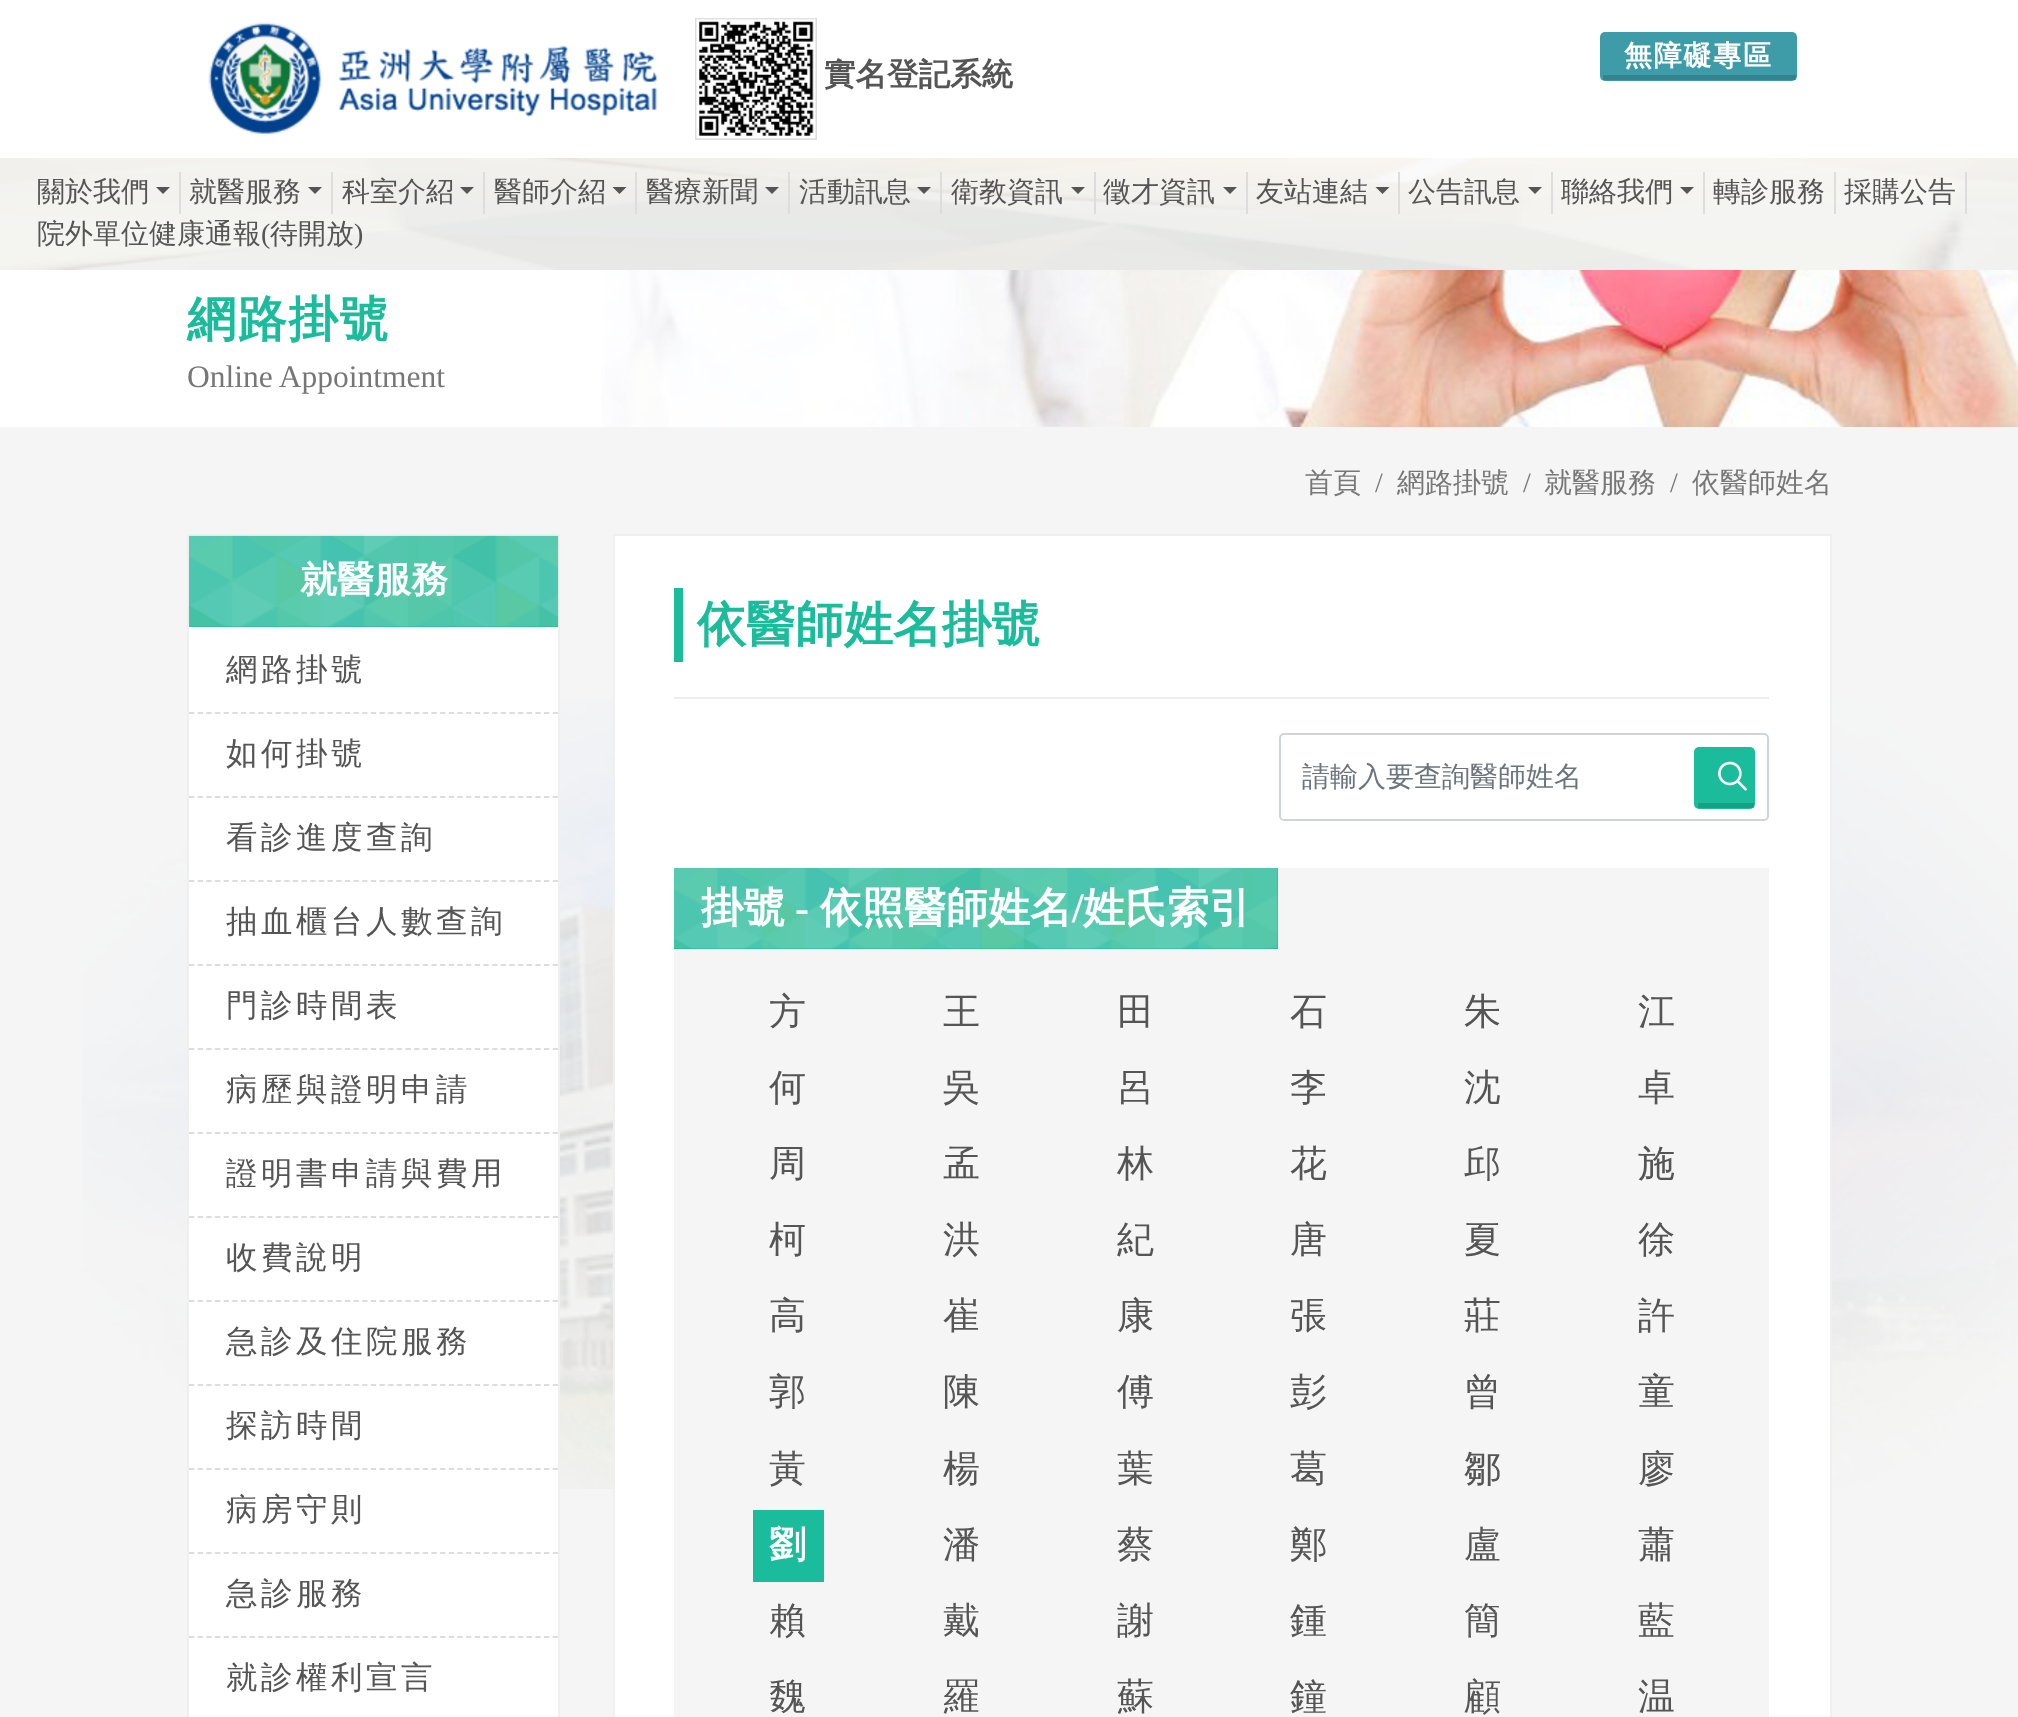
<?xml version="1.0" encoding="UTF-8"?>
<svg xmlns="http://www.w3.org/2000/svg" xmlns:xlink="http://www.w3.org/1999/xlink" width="2018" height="1717">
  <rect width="100%" height="100%" fill="#ffffff" />
  <image x="208" y="21" width="450" height="115" xlink:href="image1.png" />
  <rect x="696" y="19" width="120" height="120" fill="none" stroke="#dddddd" stroke-width="2" />
  <image x="696" y="18" width="120" height="121" xlink:href="image2.png" />
  <rect x="1600" y="32" width="197" height="49" rx="5" fill="#3e9ca9" />
  <rect x="1603" y="75" width="193" height="5" fill="#000000" fill-opacity="0.15" />
  <rect y="158" width="2018" height="112" fill="#f5f5f5" />
  <image x="0" y="158" width="2018" height="112" xlink:href="image3.png" />
  <rect x="179" y="172" width="2" height="42" fill="#dddddd" />
  <path d="M 156 187 h 14 l -7 7 z" fill="#555555" />
  <rect x="331" y="172" width="2" height="42" fill="#dddddd" />
  <path d="M 308 187 h 14 l -7 7 z" fill="#555555" />
  <rect x="483" y="172" width="2" height="42" fill="#dddddd" />
  <path d="M 460 187 h 14 l -7 7 z" fill="#555555" />
  <rect x="635" y="172" width="2" height="42" fill="#dddddd" />
  <path d="M 612.5 187 h 14 l -7 7 z" fill="#555555" />
  <rect x="788" y="172" width="2" height="42" fill="#dddddd" />
  <path d="M 765 187 h 14 l -7 7 z" fill="#555555" />
  <rect x="940" y="172" width="2" height="42" fill="#dddddd" />
  <path d="M 917 187 h 14 l -7 7 z" fill="#555555" />
  <rect x="1094" y="172" width="2" height="42" fill="#dddddd" />
  <path d="M 1071 187 h 14 l -7 7 z" fill="#555555" />
  <rect x="1246" y="172" width="2" height="42" fill="#dddddd" />
  <path d="M 1223 187 h 14 l -7 7 z" fill="#555555" />
  <rect x="1398" y="172" width="2" height="42" fill="#dddddd" />
  <path d="M 1375.5 187 h 14 l -7 7 z" fill="#555555" />
  <rect x="1551" y="172" width="2" height="42" fill="#dddddd" />
  <path d="M 1528 187 h 14 l -7 7 z" fill="#555555" />
  <rect x="1703" y="172" width="2" height="42" fill="#dddddd" />
  <path d="M 1680 187 h 14 l -7 7 z" fill="#555555" />
  <rect x="1834" y="172" width="2" height="42" fill="#dddddd" />
  <rect x="1965" y="172" width="2" height="42" fill="#dddddd" />
  <image x="601" y="270" width="1417" height="157" xlink:href="image4.png" />
  <rect y="427" width="2018" height="1290" fill="#f5f5f5" />
  <image x="82" y="699" width="1936" height="790" xlink:href="image5.png" />
  <rect x="189" y="627" width="369" height="1090" fill="#ffffff" />
  <rect x="188" y="535" width="371" height="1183" fill="none" stroke="#efefef" stroke-width="2" />
  <rect x="189" y="536" width="369" height="91" fill="#1abc9c" />
  <image x="189" y="535" width="370" height="92" xlink:href="image6.png" />
  <path d="M 189 713 h 369" fill="none" stroke="#dddddd" stroke-width="1.8" stroke-dasharray="5.25 3.41" />
  <path d="M 189 797 h 369" fill="none" stroke="#dddddd" stroke-width="1.8" stroke-dasharray="5.25 3.41" />
  <path d="M 189 881 h 369" fill="none" stroke="#dddddd" stroke-width="1.8" stroke-dasharray="5.25 3.41" />
  <path d="M 189 965 h 369" fill="none" stroke="#dddddd" stroke-width="1.8" stroke-dasharray="5.25 3.41" />
  <path d="M 189 1049 h 369" fill="none" stroke="#dddddd" stroke-width="1.8" stroke-dasharray="5.25 3.41" />
  <path d="M 189 1133 h 369" fill="none" stroke="#dddddd" stroke-width="1.8" stroke-dasharray="5.25 3.41" />
  <path d="M 189 1217 h 369" fill="none" stroke="#dddddd" stroke-width="1.8" stroke-dasharray="5.25 3.41" />
  <path d="M 189 1301 h 369" fill="none" stroke="#dddddd" stroke-width="1.8" stroke-dasharray="5.25 3.41" />
  <path d="M 189 1385 h 369" fill="none" stroke="#dddddd" stroke-width="1.8" stroke-dasharray="5.25 3.41" />
  <path d="M 189 1469 h 369" fill="none" stroke="#dddddd" stroke-width="1.8" stroke-dasharray="5.25 3.41" />
  <path d="M 189 1553 h 369" fill="none" stroke="#dddddd" stroke-width="1.8" stroke-dasharray="5.25 3.41" />
  <path d="M 189 1637 h 369" fill="none" stroke="#dddddd" stroke-width="1.8" stroke-dasharray="5.25 3.41" />
  <rect x="614" y="535" width="1217" height="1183" fill="#ffffff" stroke="#efefef" stroke-width="2" />
  <rect x="674" y="588" width="9" height="74" fill="#1abc9c" />
  <rect x="674" y="697" width="1095" height="2" fill="#eeeeee" />
  <rect x="1280" y="734" width="488" height="86" rx="4" fill="none" stroke="#ced4da" stroke-width="2" />
  <rect x="1694" y="747" width="61" height="62" rx="5" fill="#1abc9c" />
  <rect x="1698" y="803" width="56" height="5" fill="#000000" fill-opacity="0.15" />
  <image x="1718" y="761" width="29" height="30" xlink:href="image7.png" />
  <rect x="674" y="868" width="1095" height="849" fill="#f5f5f5" />
  <rect x="674" y="868" width="604" height="81" fill="#1abc9c" />
  <image x="673" y="868" width="605" height="81" xlink:href="image8.png" />
  <rect x="753" y="1510" width="71" height="72" fill="#1abc9c" />
  <text x="824" y="85" style="font-family: WenQuanYi Zen Hei; font-size: 31.5px; font-weight: bold; fill: #555555">實名登記系統</text>
  <text x="1624" y="65" style="font-family: WenQuanYi Zen Hei; font-size: 28px; font-weight: bold; letter-spacing: 1.75px; fill: #ffffff">無障礙專區</text>
  <text x="37" y="201" style="font-family: WenQuanYi Zen Hei; font-size: 28px; font-weight: 500; fill: #555555">關於我們</text>
  <text x="189" y="201" style="font-family: WenQuanYi Zen Hei; font-size: 28px; font-weight: 500; fill: #555555">就醫服務</text>
  <text x="342" y="201" style="font-family: WenQuanYi Zen Hei; font-size: 28px; font-weight: 500; fill: #555555">科室介紹</text>
  <text x="494" y="201" style="font-family: WenQuanYi Zen Hei; font-size: 28px; font-weight: 500; fill: #555555">醫師介紹</text>
  <text x="646" y="201" style="font-family: WenQuanYi Zen Hei; font-size: 28px; font-weight: 500; fill: #555555">醫療新聞</text>
  <text x="799" y="201" style="font-family: WenQuanYi Zen Hei; font-size: 28px; font-weight: 500; fill: #555555">活動訊息</text>
  <text x="951" y="201" style="font-family: WenQuanYi Zen Hei; font-size: 28px; font-weight: 500; fill: #555555">衛教資訊</text>
  <text x="1103" y="201" style="font-family: WenQuanYi Zen Hei; font-size: 28px; font-weight: 500; fill: #555555">徵才資訊</text>
  <text x="1256" y="201" style="font-family: WenQuanYi Zen Hei; font-size: 28px; font-weight: 500; fill: #555555">友站連結</text>
  <text x="1408" y="201" style="font-family: WenQuanYi Zen Hei; font-size: 28px; font-weight: 500; fill: #555555">公告訊息</text>
  <text x="1561" y="201" style="font-family: WenQuanYi Zen Hei; font-size: 28px; font-weight: 500; fill: #555555">聯絡我們</text>
  <text x="1713" y="201" style="font-family: WenQuanYi Zen Hei; font-size: 28px; font-weight: 500; fill: #555555">轉診服務</text>
  <text x="1844" y="201" style="font-family: WenQuanYi Zen Hei; font-size: 28px; font-weight: 500; fill: #555555">採購公告</text>
  <text x="37" y="243" style="font-family: WenQuanYi Zen Hei; font-size: 28px; font-weight: 500; fill: #555555">院外單位健康通報</text>
  <text x="261" y="243" style="font-family: Liberation Serif; font-size: 28px; fill: #555555">(</text>
  <text x="270" y="243" style="font-family: WenQuanYi Zen Hei; font-size: 28px; font-weight: 500; fill: #555555">待開放</text>
  <text x="354" y="243" style="font-family: Liberation Serif; font-size: 28px; fill: #555555">)</text>
  <text x="187" y="336" style="font-family: WenQuanYi Zen Hei; font-size: 49px; font-weight: bold; letter-spacing: 1.75px; fill: #1abc9c">網路掛號</text>
  <text x="187" y="387" style="font-family: Liberation Serif; font-size: 31.5px; fill: #777777">Online Appointment</text>
  <text x="1305" y="492" style="font-family: WenQuanYi Zen Hei; font-size: 28px; font-weight: 500; fill: #777777">首頁</text>
  <text x="1375" y="492" style="font-family: Liberation Serif; font-size: 28px; fill: #777777">/</text>
  <text x="1397" y="492" style="font-family: WenQuanYi Zen Hei; font-size: 28px; font-weight: 500; fill: #777777">網路掛號</text>
  <text x="1523" y="492" style="font-family: Liberation Serif; font-size: 28px; fill: #777777">/</text>
  <text x="1544" y="492" style="font-family: WenQuanYi Zen Hei; font-size: 28px; font-weight: 500; fill: #777777">就醫服務</text>
  <text x="1670" y="492" style="font-family: Liberation Serif; font-size: 28px; fill: #777777">/</text>
  <text x="1692" y="492" style="font-family: WenQuanYi Zen Hei; font-size: 28px; font-weight: 500; fill: #777777">依醫師姓名</text>
  <text x="300" y="592" style="font-family: WenQuanYi Zen Hei; font-size: 37px; font-weight: bold; fill: #ffffff">就醫服務</text>
  <text x="226" y="680" style="font-family: WenQuanYi Zen Hei; font-size: 31.5px; font-weight: 500; letter-spacing: 3.5px; fill: #555555">網路掛號</text>
  <text x="226" y="764" style="font-family: WenQuanYi Zen Hei; font-size: 31.5px; font-weight: 500; letter-spacing: 3.5px; fill: #555555">如何掛號</text>
  <text x="226" y="848" style="font-family: WenQuanYi Zen Hei; font-size: 31.5px; font-weight: 500; letter-spacing: 3.5px; fill: #555555">看診進度查詢</text>
  <text x="226" y="932" style="font-family: WenQuanYi Zen Hei; font-size: 31.5px; font-weight: 500; letter-spacing: 3.5px; fill: #555555">抽血櫃台人數查詢</text>
  <text x="226" y="1016" style="font-family: WenQuanYi Zen Hei; font-size: 31.5px; font-weight: 500; letter-spacing: 3.5px; fill: #555555">門診時間表</text>
  <text x="226" y="1100" style="font-family: WenQuanYi Zen Hei; font-size: 31.5px; font-weight: 500; letter-spacing: 3.5px; fill: #555555">病歷與證明申請</text>
  <text x="226" y="1184" style="font-family: WenQuanYi Zen Hei; font-size: 31.5px; font-weight: 500; letter-spacing: 3.5px; fill: #555555">證明書申請與費用</text>
  <text x="226" y="1268" style="font-family: WenQuanYi Zen Hei; font-size: 31.5px; font-weight: 500; letter-spacing: 3.5px; fill: #555555">收費說明</text>
  <text x="226" y="1352" style="font-family: WenQuanYi Zen Hei; font-size: 31.5px; font-weight: 500; letter-spacing: 3.5px; fill: #555555">急診及住院服務</text>
  <text x="226" y="1436" style="font-family: WenQuanYi Zen Hei; font-size: 31.5px; font-weight: 500; letter-spacing: 3.5px; fill: #555555">探訪時間</text>
  <text x="226" y="1520" style="font-family: WenQuanYi Zen Hei; font-size: 31.5px; font-weight: 500; letter-spacing: 3.5px; fill: #555555">病房守則</text>
  <text x="226" y="1604" style="font-family: WenQuanYi Zen Hei; font-size: 31.5px; font-weight: 500; letter-spacing: 3.5px; fill: #555555">急診服務</text>
  <text x="226" y="1688" style="font-family: WenQuanYi Zen Hei; font-size: 31.5px; font-weight: 500; letter-spacing: 3.5px; fill: #555555">就診權利宣言</text>
  <text x="697" y="641" style="font-family: WenQuanYi Zen Hei; font-size: 49px; font-weight: bold; fill: #1abc9c">依醫師姓名掛號</text>
  <text x="1302" y="786" style="font-family: WenQuanYi Zen Hei; font-size: 28px; font-weight: 500; fill: #6c757d">請輸入要查詢醫師姓名</text>
  <text x="701" y="922" style="font-family: WenQuanYi Zen Hei; font-size: 42px; font-weight: bold; fill: #ffffff">掛號</text>
  <text x="795" y="922" style="font-family: Liberation Serif; font-size: 42px; font-weight: bold; fill: #ffffff">-</text>
  <text x="820" y="922" style="font-family: WenQuanYi Zen Hei; font-size: 42px; font-weight: bold; fill: #ffffff">依照醫師姓名</text>
  <text x="1072" y="922" style="font-family: Liberation Serif; font-size: 42px; font-weight: bold; fill: #ffffff">/</text>
  <text x="1083" y="922" style="font-family: WenQuanYi Zen Hei; font-size: 42px; font-weight: bold; fill: #ffffff">姓氏索引</text>
  <text x="769" y="1024" style="font-family: WenQuanYi Zen Hei; font-size: 37px; font-weight: 500; fill: #555555">方</text>
  <text x="943" y="1024" style="font-family: WenQuanYi Zen Hei; font-size: 37px; font-weight: 500; fill: #555555">王</text>
  <text x="1117" y="1024" style="font-family: WenQuanYi Zen Hei; font-size: 37px; font-weight: 500; fill: #555555">田</text>
  <text x="1290" y="1024" style="font-family: WenQuanYi Zen Hei; font-size: 37px; font-weight: 500; fill: #555555">石</text>
  <text x="1464" y="1024" style="font-family: WenQuanYi Zen Hei; font-size: 37px; font-weight: 500; fill: #555555">朱</text>
  <text x="1638" y="1024" style="font-family: WenQuanYi Zen Hei; font-size: 37px; font-weight: 500; fill: #555555">江</text>
  <text x="769" y="1100" style="font-family: WenQuanYi Zen Hei; font-size: 37px; font-weight: 500; fill: #555555">何</text>
  <text x="943" y="1100" style="font-family: WenQuanYi Zen Hei; font-size: 37px; font-weight: 500; fill: #555555">吳</text>
  <text x="1117" y="1100" style="font-family: WenQuanYi Zen Hei; font-size: 37px; font-weight: 500; fill: #555555">呂</text>
  <text x="1290" y="1100" style="font-family: WenQuanYi Zen Hei; font-size: 37px; font-weight: 500; fill: #555555">李</text>
  <text x="1464" y="1100" style="font-family: WenQuanYi Zen Hei; font-size: 37px; font-weight: 500; fill: #555555">沈</text>
  <text x="1638" y="1100" style="font-family: WenQuanYi Zen Hei; font-size: 37px; font-weight: 500; fill: #555555">卓</text>
  <text x="769" y="1176" style="font-family: WenQuanYi Zen Hei; font-size: 37px; font-weight: 500; fill: #555555">周</text>
  <text x="943" y="1176" style="font-family: WenQuanYi Zen Hei; font-size: 37px; font-weight: 500; fill: #555555">孟</text>
  <text x="1117" y="1176" style="font-family: WenQuanYi Zen Hei; font-size: 37px; font-weight: 500; fill: #555555">林</text>
  <text x="1290" y="1176" style="font-family: WenQuanYi Zen Hei; font-size: 37px; font-weight: 500; fill: #555555">花</text>
  <text x="1464" y="1176" style="font-family: WenQuanYi Zen Hei; font-size: 37px; font-weight: 500; fill: #555555">邱</text>
  <text x="1638" y="1176" style="font-family: WenQuanYi Zen Hei; font-size: 37px; font-weight: 500; fill: #555555">施</text>
  <text x="769" y="1252" style="font-family: WenQuanYi Zen Hei; font-size: 37px; font-weight: 500; fill: #555555">柯</text>
  <text x="943" y="1252" style="font-family: WenQuanYi Zen Hei; font-size: 37px; font-weight: 500; fill: #555555">洪</text>
  <text x="1117" y="1252" style="font-family: WenQuanYi Zen Hei; font-size: 37px; font-weight: 500; fill: #555555">紀</text>
  <text x="1290" y="1252" style="font-family: WenQuanYi Zen Hei; font-size: 37px; font-weight: 500; fill: #555555">唐</text>
  <text x="1464" y="1252" style="font-family: WenQuanYi Zen Hei; font-size: 37px; font-weight: 500; fill: #555555">夏</text>
  <text x="1638" y="1252" style="font-family: WenQuanYi Zen Hei; font-size: 37px; font-weight: 500; fill: #555555">徐</text>
  <text x="769" y="1328" style="font-family: WenQuanYi Zen Hei; font-size: 37px; font-weight: 500; fill: #555555">高</text>
  <text x="943" y="1328" style="font-family: WenQuanYi Zen Hei; font-size: 37px; font-weight: 500; fill: #555555">崔</text>
  <text x="1117" y="1328" style="font-family: WenQuanYi Zen Hei; font-size: 37px; font-weight: 500; fill: #555555">康</text>
  <text x="1290" y="1328" style="font-family: WenQuanYi Zen Hei; font-size: 37px; font-weight: 500; fill: #555555">張</text>
  <text x="1464" y="1328" style="font-family: WenQuanYi Zen Hei; font-size: 37px; font-weight: 500; fill: #555555">莊</text>
  <text x="1638" y="1328" style="font-family: WenQuanYi Zen Hei; font-size: 37px; font-weight: 500; fill: #555555">許</text>
  <text x="769" y="1404" style="font-family: WenQuanYi Zen Hei; font-size: 37px; font-weight: 500; fill: #555555">郭</text>
  <text x="943" y="1404" style="font-family: WenQuanYi Zen Hei; font-size: 37px; font-weight: 500; fill: #555555">陳</text>
  <text x="1117" y="1404" style="font-family: WenQuanYi Zen Hei; font-size: 37px; font-weight: 500; fill: #555555">傅</text>
  <text x="1290" y="1404" style="font-family: WenQuanYi Zen Hei; font-size: 37px; font-weight: 500; fill: #555555">彭</text>
  <text x="1464" y="1404" style="font-family: WenQuanYi Zen Hei; font-size: 37px; font-weight: 500; fill: #555555">曾</text>
  <text x="1638" y="1404" style="font-family: WenQuanYi Zen Hei; font-size: 37px; font-weight: 500; fill: #555555">童</text>
  <text x="769" y="1481" style="font-family: WenQuanYi Zen Hei; font-size: 37px; font-weight: 500; fill: #555555">黃</text>
  <text x="943" y="1481" style="font-family: WenQuanYi Zen Hei; font-size: 37px; font-weight: 500; fill: #555555">楊</text>
  <text x="1117" y="1481" style="font-family: WenQuanYi Zen Hei; font-size: 37px; font-weight: 500; fill: #555555">葉</text>
  <text x="1290" y="1481" style="font-family: WenQuanYi Zen Hei; font-size: 37px; font-weight: 500; fill: #555555">葛</text>
  <text x="1464" y="1481" style="font-family: WenQuanYi Zen Hei; font-size: 37px; font-weight: 500; fill: #555555">鄒</text>
  <text x="1638" y="1481" style="font-family: WenQuanYi Zen Hei; font-size: 37px; font-weight: 500; fill: #555555">廖</text>
  <text x="769" y="1557" style="font-family: WenQuanYi Zen Hei; font-size: 37px; font-weight: bold; fill: #ffffff">劉</text>
  <text x="943" y="1557" style="font-family: WenQuanYi Zen Hei; font-size: 37px; font-weight: 500; fill: #555555">潘</text>
  <text x="1117" y="1557" style="font-family: WenQuanYi Zen Hei; font-size: 37px; font-weight: 500; fill: #555555">蔡</text>
  <text x="1290" y="1557" style="font-family: WenQuanYi Zen Hei; font-size: 37px; font-weight: 500; fill: #555555">鄭</text>
  <text x="1464" y="1557" style="font-family: WenQuanYi Zen Hei; font-size: 37px; font-weight: 500; fill: #555555">盧</text>
  <text x="1638" y="1557" style="font-family: WenQuanYi Zen Hei; font-size: 37px; font-weight: 500; fill: #555555">蕭</text>
  <text x="769" y="1633" style="font-family: WenQuanYi Zen Hei; font-size: 37px; font-weight: 500; fill: #555555">賴</text>
  <text x="943" y="1633" style="font-family: WenQuanYi Zen Hei; font-size: 37px; font-weight: 500; fill: #555555">戴</text>
  <text x="1117" y="1633" style="font-family: WenQuanYi Zen Hei; font-size: 37px; font-weight: 500; fill: #555555">謝</text>
  <text x="1290" y="1633" style="font-family: WenQuanYi Zen Hei; font-size: 37px; font-weight: 500; fill: #555555">鍾</text>
  <text x="1464" y="1633" style="font-family: WenQuanYi Zen Hei; font-size: 37px; font-weight: 500; fill: #555555">簡</text>
  <text x="1638" y="1633" style="font-family: WenQuanYi Zen Hei; font-size: 37px; font-weight: 500; fill: #555555">藍</text>
  <text x="769" y="1709" style="font-family: WenQuanYi Zen Hei; font-size: 37px; font-weight: 500; fill: #555555">魏</text>
  <text x="943" y="1709" style="font-family: WenQuanYi Zen Hei; font-size: 37px; font-weight: 500; fill: #555555">羅</text>
  <text x="1117" y="1709" style="font-family: WenQuanYi Zen Hei; font-size: 37px; font-weight: 500; fill: #555555">蘇</text>
  <text x="1290" y="1709" style="font-family: WenQuanYi Zen Hei; font-size: 37px; font-weight: 500; fill: #555555">鐘</text>
  <text x="1464" y="1709" style="font-family: WenQuanYi Zen Hei; font-size: 37px; font-weight: 500; fill: #555555">顧</text>
  <text x="1638" y="1709" style="font-family: WenQuanYi Zen Hei; font-size: 37px; font-weight: 500; fill: #555555">温</text>
</svg>
